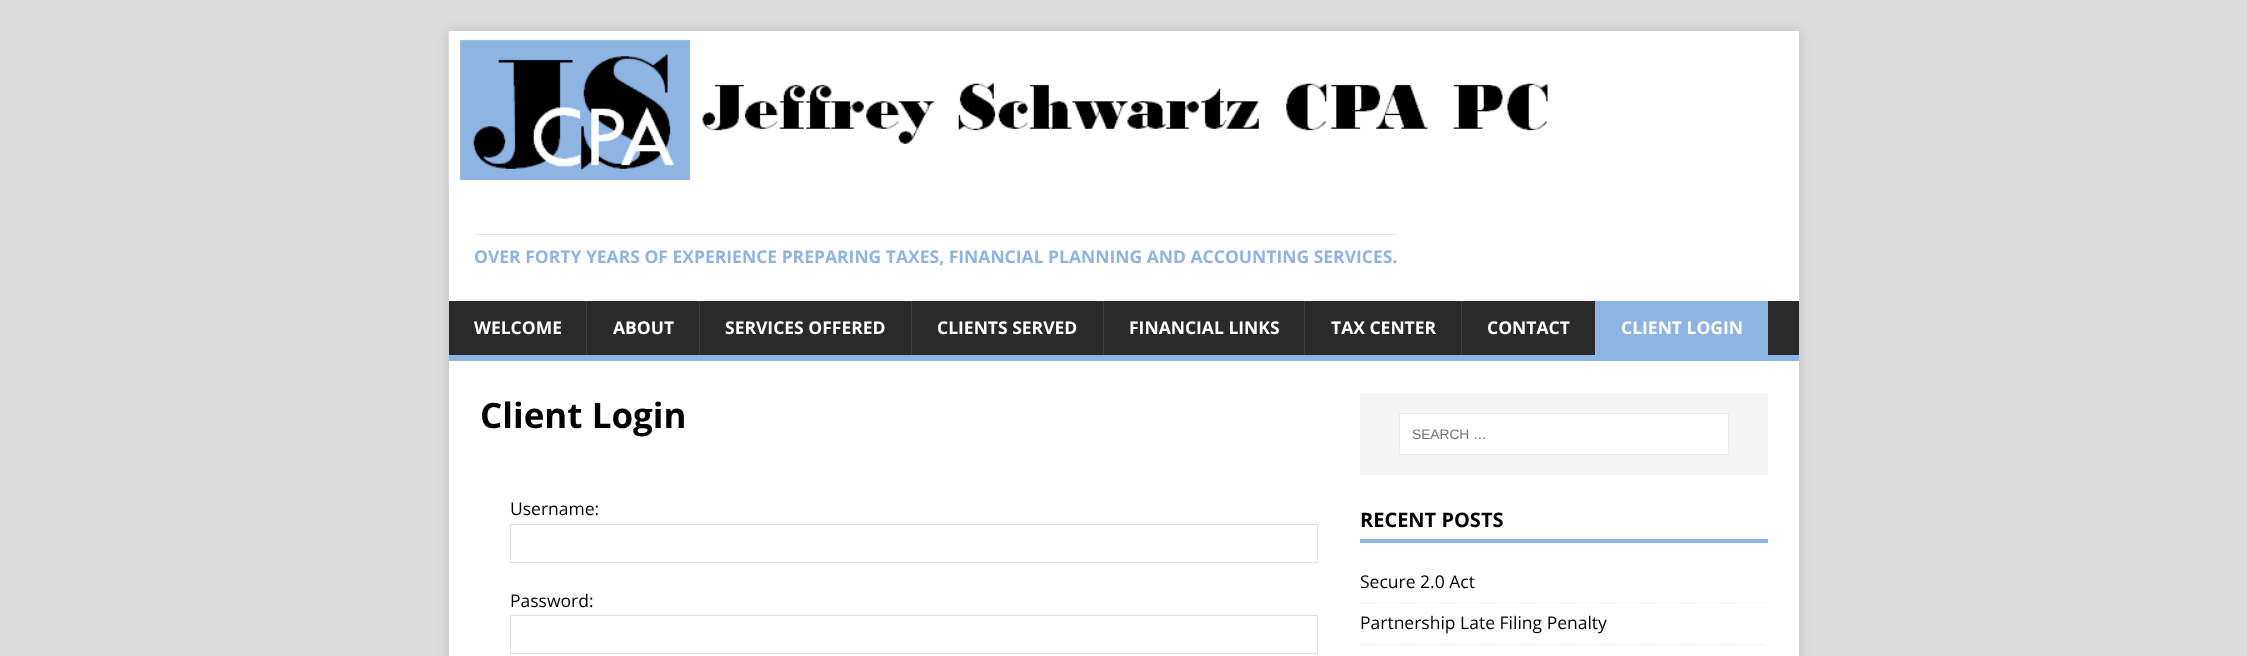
<?xml version="1.0" encoding="UTF-8"?>
<svg xmlns="http://www.w3.org/2000/svg" xmlns:xlink="http://www.w3.org/1999/xlink" width="2247" height="656">
  <defs>
    <clipPath id="clip1"><rect x="1360" y="506" width="408" height="139" /></clipPath>
  </defs>
  <rect width="100%" height="100%" fill="#dcdcdc" />
  <rect x="449" y="31" width="1350" height="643" fill="#323232" fill-opacity="0.17" filter="blur(6px)" />
  <rect x="449" y="31" width="1350" height="270" fill="#ffffff" />
  <image x="448" y="31" width="1100" height="159" xlink:href="image1.png" />
  <rect x="474" y="234" width="924" height="1" fill="#e5e5e5" />
  <rect x="449" y="301" width="1350" height="54" fill="#2a2a2a" />
  <rect x="449" y="355" width="1350" height="6" fill="#8eb4e3" />
  <rect x="586" y="301" width="1" height="54" fill="#3f3f3f" />
  <rect x="699" y="301" width="1" height="54" fill="#3f3f3f" />
  <rect x="911" y="301" width="1" height="54" fill="#3f3f3f" />
  <rect x="1103" y="301" width="1" height="54" fill="#3f3f3f" />
  <rect x="1304" y="301" width="1" height="54" fill="#3f3f3f" />
  <rect x="1461" y="301" width="1" height="54" fill="#3f3f3f" />
  <rect x="1596" y="301" width="172" height="54" fill="#8eb4e3" />
  <rect x="1595" y="301" width="1" height="54" fill="#99bce6" />
  <rect x="449" y="361" width="1350" height="295" fill="#ffffff" />
  <rect x="510.5" y="524.5" width="807" height="38" fill="none" stroke="#dddddd" />
  <rect x="510.5" y="615.5" width="807" height="38" fill="none" stroke="#dddddd" />
  <rect x="1360" y="393" width="408" height="82" fill="#f5f5f5" />
  <rect x="1399.5" y="413.5" width="329" height="41" fill="#ffffff" stroke="#ebebeb" />
  <rect x="1360" y="539" width="408" height="4" fill="#8eb4e3" />
  <path d="M 1360 603 h 407.5" fill="none" stroke="#e5e5e5" stroke-width="1.2" stroke-dasharray="1.25 1.25" />
  <g clip-path="url(#clip1)">
    <path d="M 1360 644.5 h 407.5" fill="none" stroke="#e5e5e5" stroke-width="1.2" stroke-dasharray="1.25 1.25" />
  </g>
  <text x="474" y="263" style="font-family: Open Sans; font-size: 17.5px; font-weight: bold; fill: #8eb4e3">OVER FORTY YEARS OF EXPERIENCE PREPARING TAXES, FINANCIAL PLANNING AND ACCOUNTING SERVICES.</text>
  <text x="474" y="334" style="font-family: Open Sans; font-size: 17.5px; font-weight: bold; fill: #ffffff">WELCOME</text>
  <text x="613" y="334" style="font-family: Open Sans; font-size: 17.5px; font-weight: bold; fill: #ffffff">ABOUT</text>
  <text x="725" y="334" style="font-family: Open Sans; font-size: 17.5px; font-weight: bold; fill: #ffffff">SERVICES OFFERED</text>
  <text x="937" y="334" style="font-family: Open Sans; font-size: 17.5px; font-weight: bold; fill: #ffffff">CLIENTS SERVED</text>
  <text x="1129" y="334" style="font-family: Open Sans; font-size: 17.5px; font-weight: bold; fill: #ffffff">FINANCIAL LINKS</text>
  <text x="1331" y="334" style="font-family: Open Sans; font-size: 17.5px; font-weight: bold; fill: #ffffff">TAX CENTER</text>
  <text x="1487" y="334" style="font-family: Open Sans; font-size: 17.5px; font-weight: bold; fill: #ffffff">CONTACT</text>
  <text x="1621" y="334" style="font-family: Open Sans; font-size: 17.5px; font-weight: bold; fill: #ffffff">CLIENT LOGIN</text>
  <text x="480" y="428" style="font-family: Open Sans; font-size: 35px; font-weight: bold; fill: #000000">Client Login</text>
  <text x="510" y="515" style="font-family: Open Sans; font-size: 17.5px; fill: #000000">Username:</text>
  <text x="510" y="607" style="font-family: Open Sans; font-size: 17.5px; fill: #000000">Password:</text>
  <text x="1412" y="439" style="font-family: Liberation Sans; font-size: 13.75px; fill: #757575">SEARCH …</text>
  <text x="1360" y="527" style="font-family: Open Sans; font-size: 20px; font-weight: bold; fill: #000000">RECENT POSTS</text>
  <text x="1360" y="588" style="font-family: Open Sans; font-size: 17.5px; fill: #000000">Secure 2.0 Act</text>
  <text x="1360" y="629" style="font-family: Open Sans; font-size: 17.5px; fill: #000000">Partnership Late Filing Penalty</text>
</svg>
